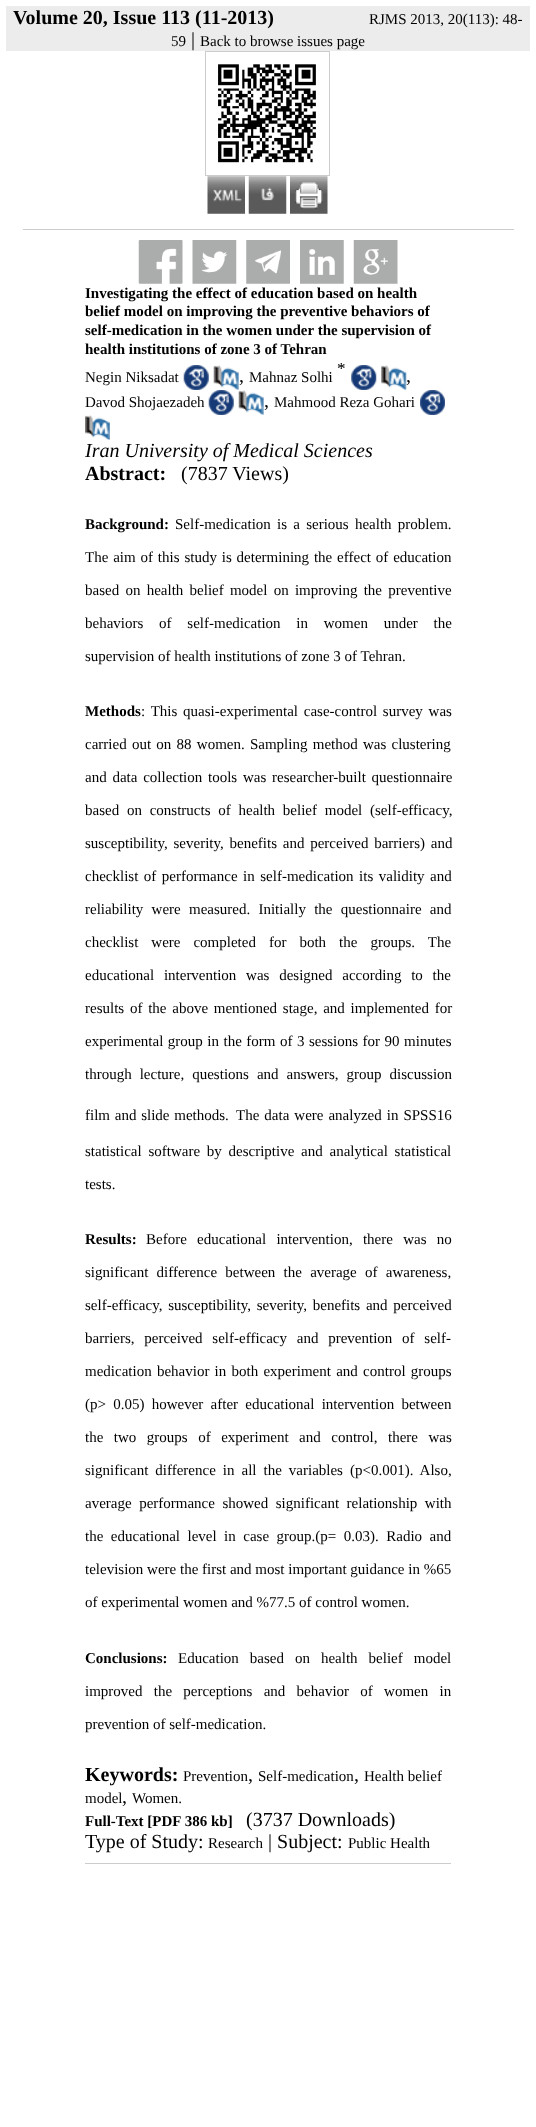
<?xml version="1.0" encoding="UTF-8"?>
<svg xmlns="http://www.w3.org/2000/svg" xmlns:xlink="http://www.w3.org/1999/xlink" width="536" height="2127">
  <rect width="100%" height="100%" fill="#ffffff" />
  <rect x="6" y="6" width="524" height="45" fill="#edecec" />
  <rect x="205.5" y="51.5" width="124" height="124" fill="none" stroke="#cccccc" />
  <image x="218" y="64" width="98" height="99" xlink:href="image1.png" />
  <image x="207" y="176" width="38" height="38" xlink:href="image2.png" />
  <image x="248" y="176" width="39" height="38" xlink:href="image3.png" />
  <image x="290" y="176" width="38" height="38" xlink:href="image4.png" />
  <rect x="23" y="229" width="491" height="1" fill="#cccccc" />
  <image x="138" y="240" width="45" height="44" xlink:href="image5.png" />
  <image x="192" y="240" width="45" height="44" xlink:href="image6.png" />
  <image x="246" y="240" width="44" height="44" xlink:href="image7.png" />
  <image x="300" y="240" width="44" height="44" xlink:href="image8.png" />
  <image x="353" y="240" width="45" height="44" xlink:href="image9.png" />
  <image x="183" y="365" width="26" height="25" xlink:href="image10.png" />
  <image x="213" y="365" width="26" height="25" xlink:href="image11.png" />
  <image x="351" y="365" width="26" height="25" xlink:href="image12.png" />
  <image x="381" y="365" width="26" height="25" xlink:href="image13.png" />
  <image x="208" y="390" width="26" height="25" xlink:href="image10.png" />
  <image x="238" y="390" width="26" height="25" xlink:href="image14.png" />
  <image x="420" y="390" width="25" height="25" xlink:href="image15.png" />
  <image x="85" y="415" width="25" height="25" xlink:href="image16.png" />
  <rect x="85" y="1863" width="366" height="1" fill="#cccccc" />
  <text x="13" y="24" style="font-family: Liberation Serif; font-size: 20px; font-weight: bold; fill: #000000">Volume 20, Issue 113 (11-2013)</text>
  <text x="369" y="24" style="font-family: Liberation Serif; font-size: 15px; fill: #000000">RJMS 2013, 20(113): 48-</text>
  <text x="171" y="46" style="font-family: Liberation Serif; font-size: 15px; fill: #000000">59</text>
  <text x="191" y="46" style="font-family: Liberation Serif; font-size: 20px; fill: #000000">|</text>
  <text x="200" y="46" style="font-family: Liberation Serif; font-size: 15px; fill: #000000">Back to browse issues page</text>
  <text x="85" y="298" style="font-family: Liberation Serif; font-size: 15px; font-weight: bold; fill: #000000">Investigating the effect of education based on health</text>
  <text x="85" y="316" style="font-family: Liberation Serif; font-size: 15px; font-weight: bold; fill: #000000">belief model on improving the preventive behaviors of</text>
  <text x="85" y="335" style="font-family: Liberation Serif; font-size: 15px; font-weight: bold; fill: #000000">self-medication in the women under the supervision of</text>
  <text x="85" y="354" style="font-family: Liberation Serif; font-size: 15px; font-weight: bold; fill: #000000">health institutions of zone 3 of Tehran</text>
  <text x="85" y="382" style="font-family: Liberation Serif; font-size: 15px; fill: #000000">Negin Niksadat</text>
  <text x="239" y="382" style="font-family: Liberation Serif; font-size: 20px; fill: #000000">,</text>
  <text x="249" y="382" style="font-family: Liberation Serif; font-size: 15px; fill: #000000">Mahnaz Solhi</text>
  <text x="337" y="374" style="font-family: Liberation Serif; font-size: 17px; fill: #000000">*</text>
  <text x="406" y="382" style="font-family: Liberation Serif; font-size: 20px; fill: #000000">,</text>
  <text x="85" y="407" style="font-family: Liberation Serif; font-size: 15px; fill: #000000">Davod Shojaezadeh</text>
  <text x="264" y="407" style="font-family: Liberation Serif; font-size: 20px; fill: #000000">,</text>
  <text x="274" y="407" style="font-family: Liberation Serif; font-size: 15px; fill: #000000">Mahmood Reza Gohari</text>
  <text x="85" y="457" style="font-family: Liberation Serif; font-size: 20px; font-style: italic; fill: #000000">Iran University of Medical Sciences</text>
  <text x="85" y="480" style="font-family: Liberation Serif; font-size: 20px; font-weight: bold; fill: #000000">Abstract:</text>
  <text x="181" y="480" style="font-family: Liberation Serif; font-size: 20px; fill: #000000">(7837 Views)</text>
  <text x="85" y="529" style="font-family: Liberation Serif; font-size: 15px; font-weight: bold; fill: #000000">Background:</text>
  <text x="175" y="529" word-spacing="2.5" style="font-family: Liberation Serif; font-size: 15px; fill: #000000">Self-medication is a serious health problem.</text>
  <text x="85" y="562" word-spacing="1.1" style="font-family: Liberation Serif; font-size: 15px; fill: #000000">The aim of this study is determining the effect of education</text>
  <text x="85" y="595" word-spacing="2.5" style="font-family: Liberation Serif; font-size: 15px; fill: #000000">based on health belief model on improving the preventive</text>
  <text x="85" y="628" word-spacing="12" style="font-family: Liberation Serif; font-size: 15px; fill: #000000">behaviors of self-medication in women under the</text>
  <text x="85" y="661" style="font-family: Liberation Serif; font-size: 15px; fill: #000000">supervision of health institutions of zone 3 of Tehran.</text>
  <text x="85" y="716" style="font-family: Liberation Serif; font-size: 15px; font-weight: bold; fill: #000000">Methods</text>
  <text x="141" y="716" word-spacing="2" style="font-family: Liberation Serif; font-size: 15px; fill: #000000">: This quasi-experimental case-control survey was</text>
  <text x="85" y="749" word-spacing="1.5" style="font-family: Liberation Serif; font-size: 15px; fill: #000000">carried out on 88 women. Sampling method was clustering</text>
  <text x="85" y="782" word-spacing="2" style="font-family: Liberation Serif; font-size: 15px; fill: #000000">and data collection tools was researcher-built questionnaire</text>
  <text x="85" y="815" word-spacing="4" style="font-family: Liberation Serif; font-size: 15px; fill: #000000">based on constructs of health belief model (self-efficacy,</text>
  <text x="85" y="848" word-spacing="2" style="font-family: Liberation Serif; font-size: 15px; fill: #000000">susceptibility, severity, benefits and perceived barriers) and</text>
  <text x="85" y="881" word-spacing="1.75" style="font-family: Liberation Serif; font-size: 15px; fill: #000000">checklist of performance in self-medication its validity and</text>
  <text x="85" y="914" word-spacing="4.5" style="font-family: Liberation Serif; font-size: 15px; fill: #000000">reliability were measured. Initially the questionnaire and</text>
  <text x="85" y="947" word-spacing="9.25" style="font-family: Liberation Serif; font-size: 15px; fill: #000000">checklist were completed for both the groups. The</text>
  <text x="85" y="980" word-spacing="6" style="font-family: Liberation Serif; font-size: 15px; fill: #000000">educational intervention was designed according to the</text>
  <text x="85" y="1013" word-spacing="2" style="font-family: Liberation Serif; font-size: 15px; fill: #000000">results of the above mentioned stage, and implemented for</text>
  <text x="85" y="1046" word-spacing="0.75" style="font-family: Liberation Serif; font-size: 15px; fill: #000000">experimental group in the form of 3 sessions for 90 minutes</text>
  <text x="85" y="1079" word-spacing="4.25" style="font-family: Liberation Serif; font-size: 15px; fill: #000000">through lecture, questions and answers, group discussion</text>
  <text x="85" y="1120" word-spacing="1" style="font-family: Liberation Serif; font-size: 15px; fill: #000000">film and slide methods.</text>
  <text x="236" y="1120" word-spacing="1.25" style="font-family: Liberation Serif; font-size: 15px; fill: #000000">The data were analyzed in SPSS16</text>
  <text x="85" y="1156" word-spacing="3" style="font-family: Liberation Serif; font-size: 15px; fill: #000000">statistical software by descriptive and analytical statistical</text>
  <text x="85" y="1189" style="font-family: Liberation Serif; font-size: 15px; fill: #000000">tests.</text>
  <text x="85" y="1244" style="font-family: Liberation Serif; font-size: 15px; font-weight: bold; fill: #000000">Results:</text>
  <text x="146" y="1244" word-spacing="6.5" style="font-family: Liberation Serif; font-size: 15px; fill: #000000">Before educational intervention, there was no</text>
  <text x="85" y="1277" word-spacing="4.5" style="font-family: Liberation Serif; font-size: 15px; fill: #000000">significant difference between the average of awareness,</text>
  <text x="85" y="1310" word-spacing="2" style="font-family: Liberation Serif; font-size: 15px; fill: #000000">self-efficacy, susceptibility, severity, benefits and perceived</text>
  <text x="85" y="1343" word-spacing="6" style="font-family: Liberation Serif; font-size: 15px; fill: #000000">barriers, perceived self-efficacy and prevention of self-</text>
  <text x="85" y="1376" word-spacing="1.5" style="font-family: Liberation Serif; font-size: 15px; fill: #000000">medication behavior in both experiment and control groups</text>
  <text x="85" y="1409" word-spacing="3.5" style="font-family: Liberation Serif; font-size: 15px; fill: #000000">(p&gt; 0.05) however after educational intervention between</text>
  <text x="85" y="1442" word-spacing="6.75" style="font-family: Liberation Serif; font-size: 15px; fill: #000000">the two groups of experiment and control, there was</text>
  <text x="85" y="1475" word-spacing="3.25" style="font-family: Liberation Serif; font-size: 15px; fill: #000000">significant difference in all the variables (p&lt;0.001). Also,</text>
  <text x="85" y="1508" word-spacing="3.75" style="font-family: Liberation Serif; font-size: 15px; fill: #000000">average performance showed significant relationship with</text>
  <text x="85" y="1541" word-spacing="3.75" style="font-family: Liberation Serif; font-size: 15px; fill: #000000">the educational level in case group.(p= 0.03). Radio and</text>
  <text x="85" y="1574" style="font-family: Liberation Serif; font-size: 15px; fill: #000000">television were the first and most important guidance in %65</text>
  <text x="85" y="1607" style="font-family: Liberation Serif; font-size: 15px; fill: #000000">of experimental women and %77.5 of control women.</text>
  <text x="85" y="1663" style="font-family: Liberation Serif; font-size: 15px; font-weight: bold; fill: #000000">Conclusions:</text>
  <text x="178" y="1663" word-spacing="7.25" style="font-family: Liberation Serif; font-size: 15px; fill: #000000">Education based on health belief model</text>
  <text x="85" y="1696" word-spacing="7.5" style="font-family: Liberation Serif; font-size: 15px; fill: #000000">improved the perceptions and behavior of women in</text>
  <text x="85" y="1729" style="font-family: Liberation Serif; font-size: 15px; fill: #000000">prevention of self-medication.</text>
  <text x="85" y="1781" style="font-family: Liberation Serif; font-size: 20px; font-weight: bold; fill: #000000">Keywords:</text>
  <text x="183" y="1781" style="font-family: Liberation Serif; font-size: 15px; fill: #000000">Prevention</text>
  <text x="248" y="1781" style="font-family: Liberation Serif; font-size: 20px; fill: #000000">,</text>
  <text x="258" y="1781" style="font-family: Liberation Serif; font-size: 15px; fill: #000000">Self-medication</text>
  <text x="354" y="1781" style="font-family: Liberation Serif; font-size: 20px; fill: #000000">,</text>
  <text x="364" y="1781" style="font-family: Liberation Serif; font-size: 15px; fill: #000000">Health belief</text>
  <text x="85" y="1803" style="font-family: Liberation Serif; font-size: 15px; fill: #000000">model</text>
  <text x="122" y="1803" style="font-family: Liberation Serif; font-size: 20px; fill: #000000">,</text>
  <text x="132" y="1803" style="font-family: Liberation Serif; font-size: 15px; fill: #000000">Women.</text>
  <text x="85" y="1826" style="font-family: Liberation Serif; font-size: 15px; font-weight: bold; fill: #000000">Full-Text [PDF 386 kb]</text>
  <text x="246" y="1826" style="font-family: Liberation Serif; font-size: 20px; fill: #000000">(3737 Downloads)</text>
  <text x="85" y="1848" style="font-family: Liberation Serif; font-size: 20px; fill: #000000">Type of Study:</text>
  <text x="208" y="1848" style="font-family: Liberation Serif; font-size: 15px; fill: #000000">Research</text>
  <text x="268" y="1848" style="font-family: Liberation Serif; font-size: 20px; fill: #000000">| Subject:</text>
  <text x="348" y="1848" style="font-family: Liberation Serif; font-size: 15px; fill: #000000">Public Health</text>
</svg>
